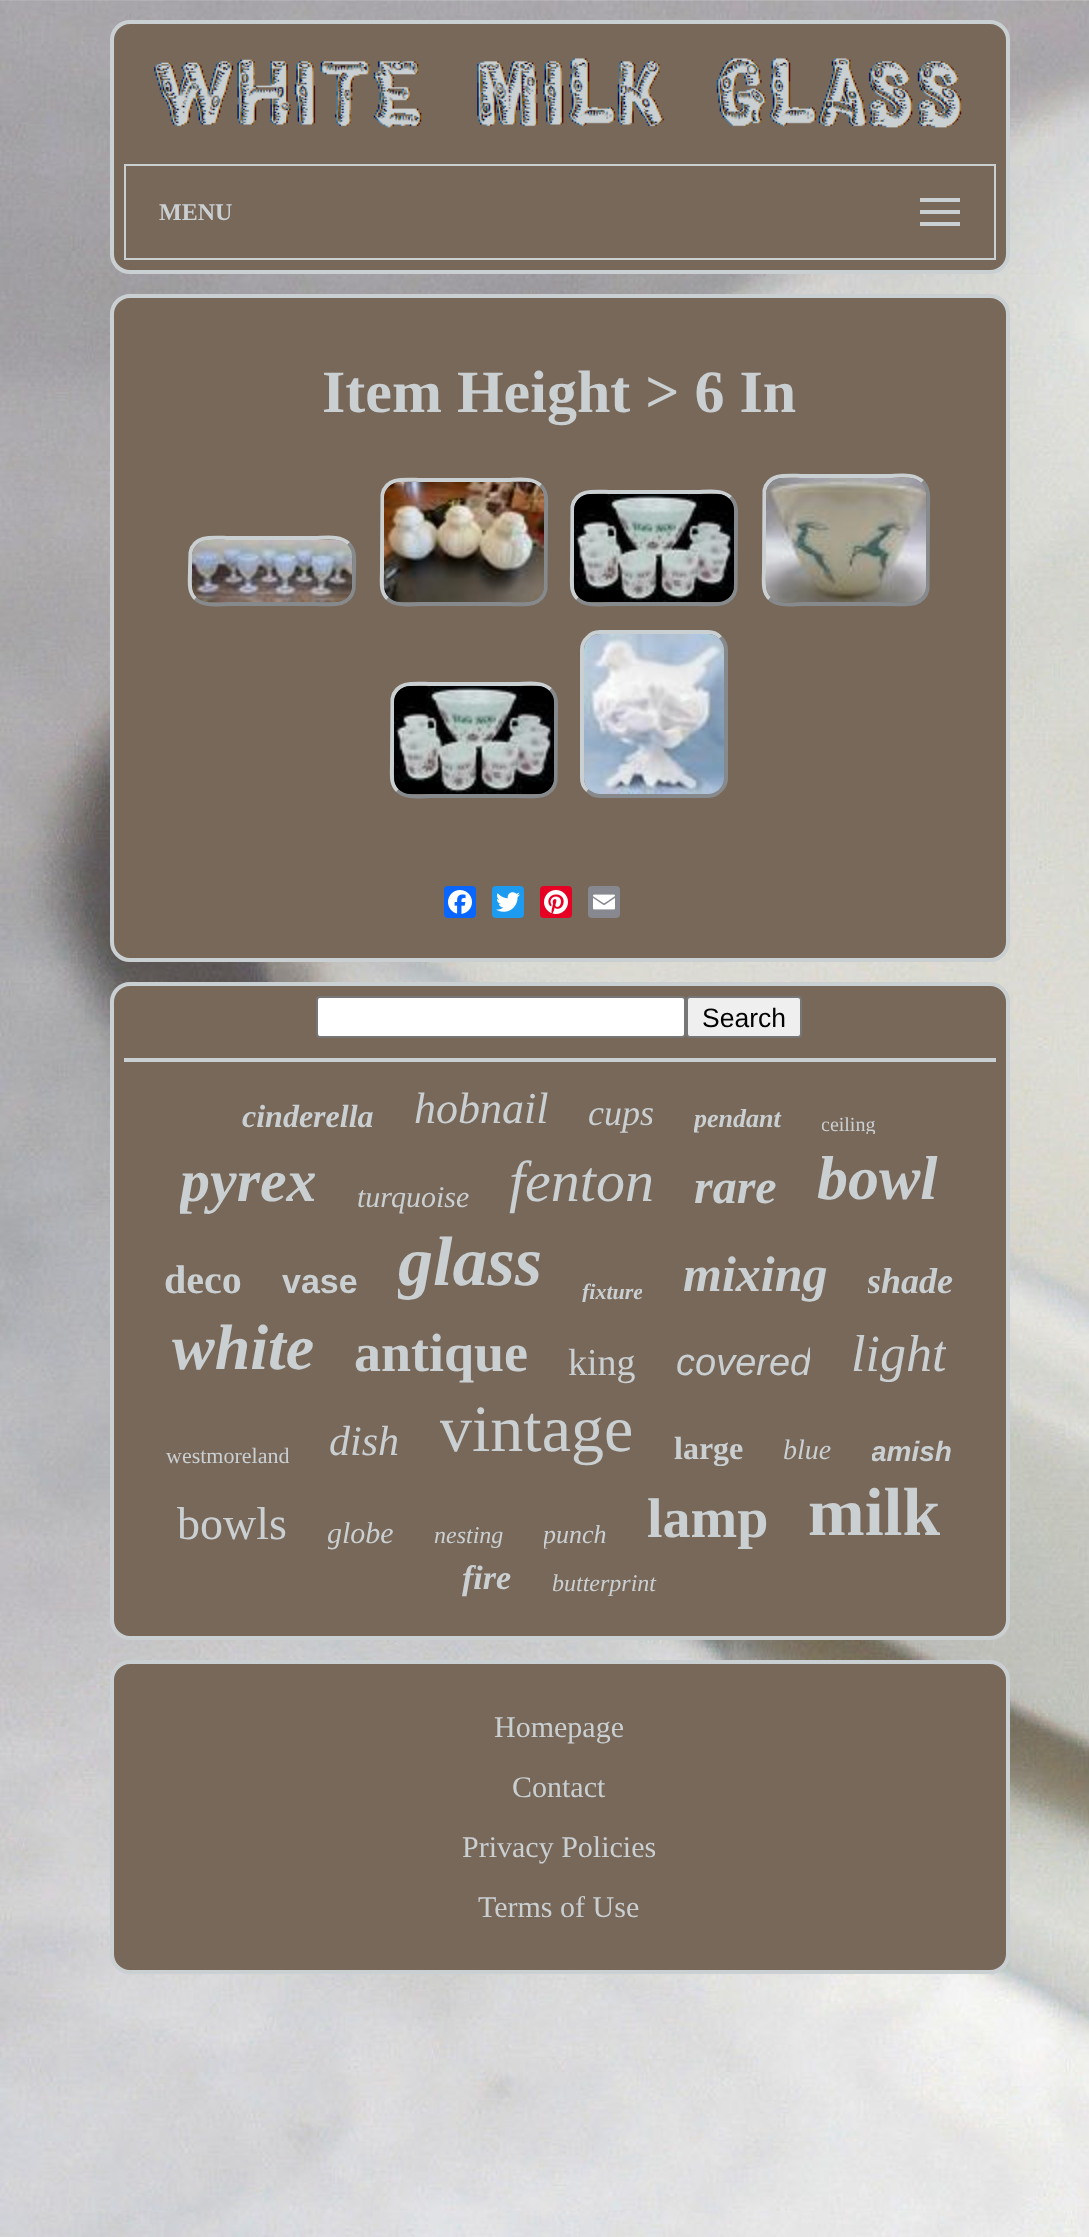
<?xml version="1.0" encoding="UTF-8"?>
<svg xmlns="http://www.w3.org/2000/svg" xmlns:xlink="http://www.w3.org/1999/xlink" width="1089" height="2237">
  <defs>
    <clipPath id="clip1"><rect x="694" y="1102" width="88" height="32" /></clipPath>
    <clipPath id="clip2"><rect x="822" y="1112" width="54" height="22" /></clipPath>
    <clipPath id="clip3"><rect x="180" y="1146" width="138" height="68" /></clipPath>
    <clipPath id="clip4"><rect x="398" y="1222" width="144" height="80" /></clipPath>
    <clipPath id="clip5"><rect x="582" y="1278" width="60" height="24" /></clipPath>
    <clipPath id="clip6"><rect x="868" y="1260" width="86" height="42" /></clipPath>
    <clipPath id="clip7"><rect x="676" y="1340" width="134" height="44" /></clipPath>
    <clipPath id="clip8"><rect x="850" y="1324" width="96" height="60" /></clipPath>
    <clipPath id="clip9"><rect x="440" y="1392" width="194" height="74" /></clipPath>
    <clipPath id="clip10"><rect x="872" y="1434" width="80" height="32" /></clipPath>
    <clipPath id="clip11"><rect x="328" y="1516" width="66" height="34" /></clipPath>
    <clipPath id="clip12"><rect x="544" y="1518" width="62" height="32" /></clipPath>
    <clipPath id="clip13"><rect x="808" y="1474" width="132" height="76" /></clipPath>
  </defs>
  <rect width="100%" height="100%" fill="#ffffff" />
  <image x="0" y="0" width="1089" height="2237" xlink:href="image1.png" />
  <rect x="112" y="22" width="896" height="250" rx="18" fill="#786859" stroke="#cacfd2" stroke-width="4" />
  <image x="154" y="58" width="808" height="70" xlink:href="image2.png" />
  <rect x="125" y="165" width="870" height="94" fill="none" stroke="#cacfd2" stroke-width="2" />
  <rect x="920" y="198" width="40" height="4" fill="#cacfd2" />
  <rect x="920" y="210" width="40" height="4" fill="#cacfd2" />
  <rect x="920" y="222" width="40" height="4" fill="#cacfd2" />
  <rect x="112" y="296" width="896" height="664" rx="18" fill="#786859" stroke="#cacfd2" stroke-width="4" />
  <path d="M 540.5 485.5 c 7.5 7 5.5 18 5.5 27 l -0.5 77 c -3.5 18.5 -25 14.5 -39 14.5 h -85 c -10 0 -25.5 3 -34 -5.5" fill="none" stroke="#878a8c" stroke-width="4" />
  <path d="M 387.5 598.5 c -7.5 -7 -5.5 -18 -5.5 -27 l 0.5 -77 c 3.5 -18.5 25 -14.5 39 -14.5 h 85 c 10 0 25.5 -3 34 5.5" fill="none" stroke="#cacfd2" stroke-width="4" />
  <path d="M 922.5 481.5 c 7.5 7 5.5 18.5 5.5 28 l -0.5 80 c -3.5 18.5 -25 14.5 -39 14.5 h -85 c -10 0 -25.5 3 -34 -5.5" fill="none" stroke="#878a8c" stroke-width="4" />
  <path d="M 769.5 598.5 c -7.5 -7 -5.5 -18.5 -5.5 -28 l 0.5 -80 c 3.5 -18.5 25 -14.5 39 -14.5 h 85 c 10 0 25.5 -3 34 5.5" fill="none" stroke="#cacfd2" stroke-width="4" />
  <image x="766" y="478" width="160" height="124" xlink:href="image3.png" />
  <image x="384" y="482" width="160" height="120" xlink:href="image4.png" />
  <path d="M 730.5 497.5 c 7 6.5 5.5 16 5.5 25 l -0.5 67 c -3.5 18.5 -25 14.5 -39 14.5 h -85 c -10 0 -25.5 3 -34 -5.5" fill="none" stroke="#878a8c" stroke-width="4" />
  <path d="M 577.5 598.5 c -7 -6.5 -5.5 -16 -5.5 -25 l 0.5 -67 c 3.5 -18.5 25 -14.5 39 -14.5 h 85 c 10 0 25.5 -3 34 5.5" fill="none" stroke="#cacfd2" stroke-width="4" />
  <image x="574" y="494" width="160" height="108" xlink:href="image5.png" />
  <path d="M 348.5 543.5 c 7.5 7 5.5 18 5.5 27.5 l -0.5 18.5 c -3.5 18.5 -25 14.5 -39 14.5 h -85 c -10 0 -25.5 3 -34 -5.5" fill="none" stroke="#878a8c" stroke-width="4" />
  <path d="M 195.5 598.5 c -7.5 -7 -5.5 -18 -5.5 -27.5 l 0.5 -18.5 c 3.5 -18.5 25 -14.5 39 -14.5 h 85 c 10 0 25.5 -3 34 5.5" fill="none" stroke="#cacfd2" stroke-width="4" />
  <image x="192" y="540" width="160" height="62" xlink:href="image6.png" />
  <path d="M 720.5 637.5 c 3.5 3 5.5 7.5 5.5 12.5 v 128 c 0 5 -2 9.5 -5.5 12.5 c -3 3.5 -7.5 5.5 -12.5 5.5 h -108 c -5 0 -9.5 -2 -12.5 -5.5" fill="none" stroke="#878a8c" stroke-width="4" />
  <path d="M 587.5 790.5 c -3.5 -3 -5.5 -7.5 -5.5 -12.5 v -128 c 0 -5 2 -9.5 5.5 -12.5 c 3 -3.5 7.5 -5.5 12.5 -5.5 h 108 c 5 0 9.5 2 12.5 5.5" fill="none" stroke="#cacfd2" stroke-width="4" />
  <image x="584" y="634" width="140" height="160" xlink:href="image7.png" />
  <path d="M 550.5 689.5 c 7 6.5 5.5 16 5.5 25 l -0.5 67 c -3.5 18.5 -25 14.5 -39 14.5 h -85 c -10 0 -25.5 3 -34 -5.5" fill="none" stroke="#878a8c" stroke-width="4" />
  <path d="M 397.5 790.5 c -7 -6.5 -5.5 -16 -5.5 -25 l 0.5 -67 c 3.5 -18.5 25 -14.5 39 -14.5 h 85 c 10 0 25.5 -3 34 5.5" fill="none" stroke="#cacfd2" stroke-width="4" />
  <image x="394" y="686" width="160" height="108" xlink:href="image8.png" />
  <rect x="444" y="886" width="32" height="32" rx="4" fill="#0866ff" />
  <image x="448" y="890" width="24" height="24" xlink:href="image9.png" />
  <rect x="492" y="886" width="32" height="32" rx="4" fill="#1d9bf0" />
  <image x="496" y="892" width="24" height="20" xlink:href="image10.png" />
  <rect x="540" y="886" width="32" height="32" rx="4" fill="#e60023" />
  <image x="544" y="890" width="24" height="24" xlink:href="image11.png" />
  <rect x="588" y="886" width="32" height="32" rx="4" fill="#888990" />
  <image x="593" y="894" width="22" height="16" xlink:href="image12.png" />
  <rect x="112" y="984" width="896" height="654" rx="18" fill="#786859" stroke="#cacfd2" stroke-width="4" />
  <rect x="317" y="997" width="368" height="40" rx="3" fill="#ffffff" stroke="#767676" stroke-width="2" />
  <rect x="687" y="997" width="114" height="40" rx="3" fill="#efefef" stroke="#767676" stroke-width="2" />
  <rect x="124" y="1058" width="872" height="4" fill="#cacfd2" />
  <rect x="112" y="1662" width="896" height="310" rx="18" fill="#786859" stroke="#cacfd2" stroke-width="4" />
  <text x="159" y="220" style="font-family: Liberation Serif; font-size: 24px; font-weight: bold; fill: #cacfd2">MENU</text>
  <text x="322" y="412" style="font-family: Liberation Serif; font-size: 60px; font-weight: bold; fill: #cacfd2">Item Height &gt; 6 In</text>
  <text x="702" y="1027" style="font-family: Liberation Sans; font-size: 26.5px; fill: #000000">Search</text>
  <text x="242" y="1127" style="font-family: Liberation Serif; font-size: 32px; font-weight: bold; font-style: italic; fill: #cacfd2">cinderella</text>
  <text x="414" y="1123" style="font-family: Liberation Serif; font-size: 44px; font-style: italic; fill: #cacfd2">hobnail</text>
  <text x="588" y="1125" style="font-family: Liberation Serif; font-size: 36px; font-style: italic; fill: #cacfd2">cups</text>
  <g clip-path="url(#clip1)">
    <text x="694" y="1127" style="font-family: Liberation Serif; font-size: 26px; font-weight: bold; font-style: italic; fill: #cacfd2">pendant</text>
  </g>
  <g clip-path="url(#clip2)">
    <text x="821" y="1131" style="font-family: Liberation Serif; font-size: 20px; fill: #cacfd2">ceiling</text>
  </g>
  <g clip-path="url(#clip3)">
    <text x="180" y="1201" style="font-family: Liberation Serif; font-size: 60px; font-weight: bold; font-style: italic; fill: #cacfd2">pyrex</text>
  </g>
  <text x="357" y="1207" style="font-family: Liberation Serif; font-size: 30px; font-style: italic; fill: #cacfd2">turquoise</text>
  <text x="509" y="1201" style="font-family: Liberation Serif; font-size: 58px; font-style: italic; fill: #cacfd2">fenton</text>
  <text x="694" y="1203" style="font-family: Liberation Serif; font-size: 48px; font-weight: bold; font-style: italic; fill: #cacfd2">rare</text>
  <text x="817" y="1199" style="font-family: Liberation Serif; font-size: 62px; font-weight: bold; font-style: italic; fill: #cacfd2">bowl</text>
  <text x="164" y="1293" style="font-family: Liberation Serif; font-size: 40px; font-weight: bold; fill: #cacfd2">deco</text>
  <text x="282" y="1293" style="font-family: Liberation Sans; font-size: 34px; font-weight: bold; fill: #cacfd2">vase</text>
  <g clip-path="url(#clip4)">
    <text x="398" y="1285" style="font-family: Liberation Serif; font-size: 70px; font-weight: bold; font-style: italic; fill: #cacfd2">glass</text>
  </g>
  <g clip-path="url(#clip5)">
    <text x="582" y="1299" style="font-family: Liberation Serif; font-size: 22px; font-weight: bold; font-style: italic; fill: #cacfd2">fixture</text>
  </g>
  <text x="683" y="1291" style="font-family: Liberation Serif; font-size: 50px; font-weight: bold; font-style: italic; fill: #cacfd2">mixing</text>
  <g clip-path="url(#clip6)">
    <text x="867" y="1293" style="font-family: Liberation Serif; font-size: 36px; font-weight: bold; font-style: italic; fill: #cacfd2">shade</text>
  </g>
  <text x="172" y="1369" style="font-family: Liberation Serif; font-size: 64px; font-weight: bold; font-style: italic; fill: #cacfd2">white</text>
  <text x="354" y="1371" style="font-family: Liberation Serif; font-size: 54px; font-weight: bold; fill: #cacfd2">antique</text>
  <text x="568" y="1375" style="font-family: Liberation Serif; font-size: 38px; fill: #cacfd2">king</text>
  <g clip-path="url(#clip7)">
    <text x="676" y="1375" style="font-family: Liberation Sans; font-size: 38px; font-style: italic; fill: #cacfd2">covered</text>
  </g>
  <g clip-path="url(#clip8)">
    <text x="851" y="1371" style="font-family: Liberation Serif; font-size: 52px; font-style: italic; fill: #cacfd2">light</text>
  </g>
  <text x="166" y="1463" style="font-family: Liberation Serif; font-size: 22px; fill: #cacfd2">westmoreland</text>
  <text x="329" y="1455" style="font-family: Liberation Serif; font-size: 42px; font-style: italic; fill: #cacfd2">dish</text>
  <g clip-path="url(#clip9)">
    <text x="439" y="1451" style="font-family: Liberation Serif; font-size: 66px; fill: #cacfd2">vintage</text>
  </g>
  <text x="674" y="1459" style="font-family: Liberation Serif; font-size: 32px; font-weight: bold; fill: #cacfd2">large</text>
  <text x="783" y="1459" style="font-family: Liberation Serif; font-size: 28px; font-style: italic; fill: #cacfd2">blue</text>
  <g clip-path="url(#clip10)">
    <text x="871" y="1461" style="font-family: Liberation Sans; font-size: 28px; font-weight: bold; font-style: italic; fill: #cacfd2">amish</text>
  </g>
  <text x="177" y="1539" style="font-family: Liberation Serif; font-size: 46px; fill: #cacfd2">bowls</text>
  <g clip-path="url(#clip11)">
    <text x="327" y="1543" style="font-family: Liberation Serif; font-size: 30px; font-style: italic; fill: #cacfd2">globe</text>
  </g>
  <text x="434" y="1543" style="font-family: Liberation Serif; font-size: 24px; font-style: italic; fill: #cacfd2">nesting</text>
  <g clip-path="url(#clip12)">
    <text x="543" y="1543" style="font-family: Liberation Serif; font-size: 26px; font-style: italic; fill: #cacfd2">punch</text>
  </g>
  <text x="647" y="1537" style="font-family: Liberation Serif; font-size: 56px; font-weight: bold; fill: #cacfd2">lamp</text>
  <g clip-path="url(#clip13)">
    <text x="808" y="1535" style="font-family: Liberation Serif; font-size: 68px; font-weight: bold; fill: #cacfd2">milk</text>
  </g>
  <text x="462" y="1589" style="font-family: Liberation Serif; font-size: 34px; font-weight: bold; font-style: italic; fill: #cacfd2">fire</text>
  <text x="552" y="1591" style="font-family: Liberation Serif; font-size: 24px; font-style: italic; fill: #cacfd2">butterprint</text>
  <text x="494" y="1737" style="font-family: Liberation Serif; font-size: 30px; fill: #cacfd2">Homepage</text>
  <text x="512" y="1797" style="font-family: Liberation Serif; font-size: 30px; fill: #cacfd2">Contact</text>
  <text x="462" y="1857" style="font-family: Liberation Serif; font-size: 30px; fill: #cacfd2">Privacy Policies</text>
  <text x="478" y="1917" style="font-family: Liberation Serif; font-size: 30px; fill: #cacfd2">Terms of Use</text>
</svg>
